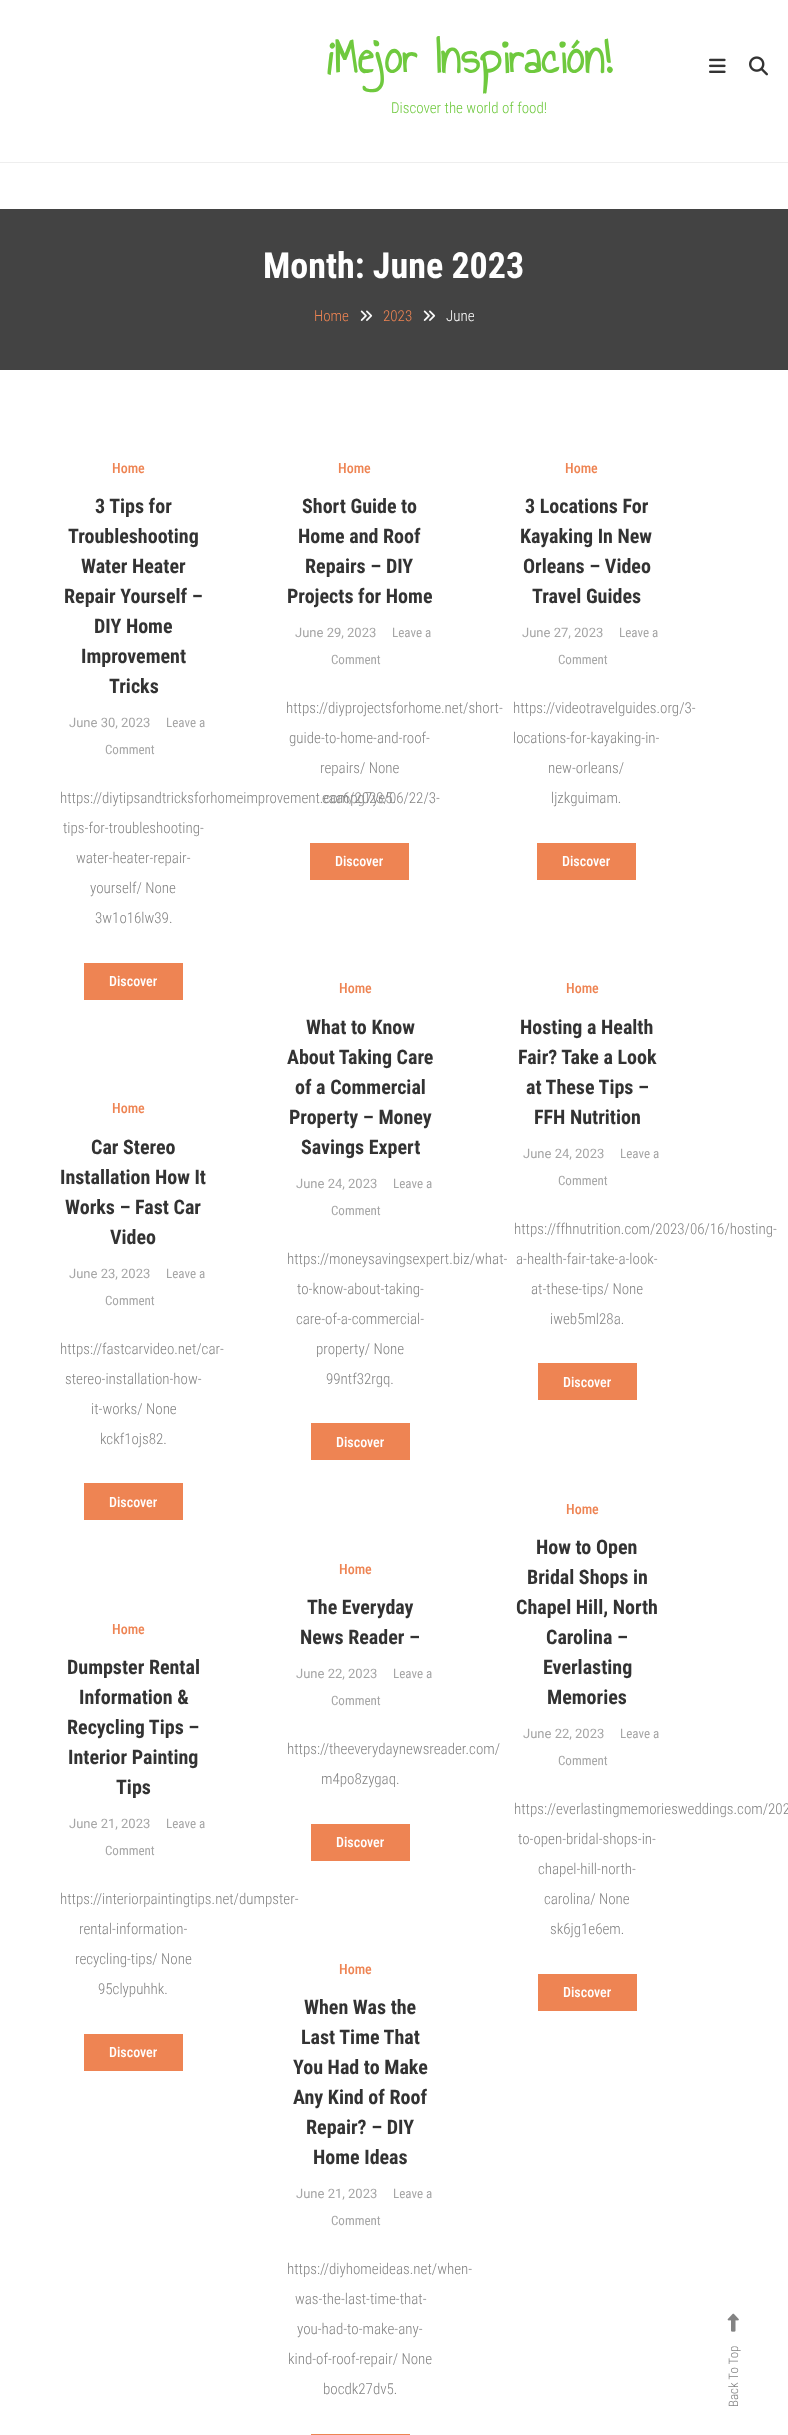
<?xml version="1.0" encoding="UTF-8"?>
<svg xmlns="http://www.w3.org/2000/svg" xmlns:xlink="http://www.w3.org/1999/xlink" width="788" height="2435">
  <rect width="100%" height="100%" fill="#ffffff" />
  <image x="709" y="58" width="17" height="15" xlink:href="image1.png" />
  <image x="749" y="56" width="19" height="20" xlink:href="image2.png" />
  <rect y="162" width="788" height="1" fill="#eeeeee" />
  <rect y="209" width="788" height="161" fill="#434343" />
  <image x="360" y="310" width="13" height="11" xlink:href="image3.png" />
  <image x="423" y="310" width="13" height="11" xlink:href="image3.png" />
  <rect x="84" y="963" width="99" height="37" fill="#ee8453" />
  <rect x="310" y="843" width="99" height="37" fill="#ee8453" />
  <rect x="537" y="843" width="99" height="37" fill="#ee8453" />
  <rect x="84" y="1483" width="99" height="37" fill="#ee8453" />
  <rect x="311" y="1423" width="99" height="37" fill="#ee8453" />
  <rect x="538" y="1363" width="99" height="37" fill="#ee8453" />
  <rect x="84" y="2034" width="99" height="37" fill="#ee8453" />
  <rect x="311" y="1824" width="99" height="37" fill="#ee8453" />
  <rect x="538" y="1974" width="99" height="37" fill="#ee8453" />
  <rect x="311" y="2434" width="99" height="1" fill="#ee8453" />
  <image x="727" y="2313" width="12" height="19" xlink:href="image4.png" />
  <text x="326" y="73" style="font-family: Annie Use Your Telescope; font-size: 50px; font-weight: bold; fill: #6fc93e">¡Mejor Inspiración!</text>
  <text x="391" y="113" style="font-family: Roboto Condensed; font-size: 15px; font-weight: 300; fill: #6fc93e">Discover the world of food!</text>
  <text x="263" y="278" style="font-family: Roboto Condensed; font-size: 36px; font-weight: bold; fill: #ffffff">Month: June 2023</text>
  <text x="314" y="321" style="font-family: Roboto Condensed; font-size: 15px; font-weight: 300; fill: #ee8453">Home</text>
  <text x="383" y="321" style="font-family: Roboto Condensed; font-size: 15px; font-weight: 300; fill: #ee8453">2023</text>
  <text x="446" y="321" style="font-family: Roboto Condensed; font-size: 15px; font-weight: 300; fill: #ffffff">June</text>
  <text x="112" y="473" style="font-family: Roboto Condensed; font-size: 14px; font-weight: 500; fill: #ee8453">Home</text>
  <text x="95" y="513" style="font-family: Roboto Condensed; font-size: 20px; font-weight: bold; fill: #333333">3 Tips for</text>
  <text x="68" y="543" style="font-family: Roboto Condensed; font-size: 20px; font-weight: bold; fill: #333333">Troubleshooting</text>
  <text x="81" y="573" style="font-family: Roboto Condensed; font-size: 20px; font-weight: bold; fill: #333333">Water Heater</text>
  <text x="64" y="603" style="font-family: Roboto Condensed; font-size: 20px; font-weight: bold; fill: #333333">Repair Yourself –</text>
  <text x="94" y="633" style="font-family: Roboto Condensed; font-size: 20px; font-weight: bold; fill: #333333">DIY Home</text>
  <text x="81" y="663" style="font-family: Roboto Condensed; font-size: 20px; font-weight: bold; fill: #333333">Improvement</text>
  <text x="109" y="693" style="font-family: Roboto Condensed; font-size: 20px; font-weight: bold; fill: #333333">Tricks</text>
  <text x="69" y="727" style="font-family: Roboto; font-size: 13px; fill: #a6a6a6">June 30, 2023</text>
  <text x="166" y="727" style="font-family: Roboto Condensed; font-size: 13px; fill: #a6a6a6">Leave a</text>
  <text x="105" y="754" style="font-family: Roboto Condensed; font-size: 13px; fill: #a6a6a6">Comment</text>
  <text x="60" y="803" style="font-family: Roboto Condensed; font-size: 15px; font-weight: 300; fill: #838383">https://diytipsandtricksforhomeimprovement.com/2023/06/22/3-</text>
  <text x="63" y="833" style="font-family: Roboto Condensed; font-size: 15px; font-weight: 300; fill: #838383">tips-for-troubleshooting-</text>
  <text x="76" y="863" style="font-family: Roboto Condensed; font-size: 15px; font-weight: 300; fill: #838383">water-heater-repair-</text>
  <text x="90" y="893" style="font-family: Roboto Condensed; font-size: 15px; font-weight: 300; fill: #838383">yourself/ None</text>
  <text x="95" y="923" style="font-family: Roboto Condensed; font-size: 15px; font-weight: 300; fill: #838383">3w1o16lw39.</text>
  <text x="109" y="986" style="font-family: Roboto Condensed; font-size: 14px; font-weight: 500; fill: #ffffff">Discover</text>
  <text x="338" y="473" style="font-family: Roboto Condensed; font-size: 14px; font-weight: 500; fill: #ee8453">Home</text>
  <text x="302" y="513" style="font-family: Roboto Condensed; font-size: 20px; font-weight: bold; fill: #333333">Short Guide to</text>
  <text x="298" y="543" style="font-family: Roboto Condensed; font-size: 20px; font-weight: bold; fill: #333333">Home and Roof</text>
  <text x="305" y="573" style="font-family: Roboto Condensed; font-size: 20px; font-weight: bold; fill: #333333">Repairs – DIY</text>
  <text x="287" y="603" style="font-family: Roboto Condensed; font-size: 20px; font-weight: bold; fill: #333333">Projects for Home</text>
  <text x="295" y="637" style="font-family: Roboto; font-size: 13px; fill: #a6a6a6">June 29, 2023</text>
  <text x="392" y="637" style="font-family: Roboto Condensed; font-size: 13px; fill: #a6a6a6">Leave a</text>
  <text x="331" y="664" style="font-family: Roboto Condensed; font-size: 13px; fill: #a6a6a6">Comment</text>
  <text x="286" y="713" style="font-family: Roboto Condensed; font-size: 15px; font-weight: 300; fill: #838383">https://diyprojectsforhome.net/short-</text>
  <text x="289" y="743" style="font-family: Roboto Condensed; font-size: 15px; font-weight: 300; fill: #838383">guide-to-home-and-roof-</text>
  <text x="320" y="773" style="font-family: Roboto Condensed; font-size: 15px; font-weight: 300; fill: #838383">repairs/ None</text>
  <text x="322" y="803" style="font-family: Roboto Condensed; font-size: 15px; font-weight: 300; fill: #838383">eaa6pg7ye5.</text>
  <text x="335" y="866" style="font-family: Roboto Condensed; font-size: 14px; font-weight: 500; fill: #ffffff">Discover</text>
  <text x="565" y="473" style="font-family: Roboto Condensed; font-size: 14px; font-weight: 500; fill: #ee8453">Home</text>
  <text x="525" y="513" style="font-family: Roboto Condensed; font-size: 20px; font-weight: bold; fill: #333333">3 Locations For</text>
  <text x="520" y="543" style="font-family: Roboto Condensed; font-size: 20px; font-weight: bold; fill: #333333">Kayaking In New</text>
  <text x="523" y="573" style="font-family: Roboto Condensed; font-size: 20px; font-weight: bold; fill: #333333">Orleans – Video</text>
  <text x="532" y="603" style="font-family: Roboto Condensed; font-size: 20px; font-weight: bold; fill: #333333">Travel Guides</text>
  <text x="522" y="637" style="font-family: Roboto; font-size: 13px; fill: #a6a6a6">June 27, 2023</text>
  <text x="619" y="637" style="font-family: Roboto Condensed; font-size: 13px; fill: #a6a6a6">Leave a</text>
  <text x="558" y="664" style="font-family: Roboto Condensed; font-size: 13px; fill: #a6a6a6">Comment</text>
  <text x="513" y="713" style="font-family: Roboto Condensed; font-size: 15px; font-weight: 300; fill: #838383">https://videotravelguides.org/3-</text>
  <text x="513" y="743" style="font-family: Roboto Condensed; font-size: 15px; font-weight: 300; fill: #838383">locations-for-kayaking-in-</text>
  <text x="548" y="773" style="font-family: Roboto Condensed; font-size: 15px; font-weight: 300; fill: #838383">new-orleans/</text>
  <text x="551" y="803" style="font-family: Roboto Condensed; font-size: 15px; font-weight: 300; fill: #838383">ljzkguimam.</text>
  <text x="562" y="866" style="font-family: Roboto Condensed; font-size: 14px; font-weight: 500; fill: #ffffff">Discover</text>
  <text x="112" y="1113" style="font-family: Roboto Condensed; font-size: 14px; font-weight: 500; fill: #ee8453">Home</text>
  <text x="91" y="1154" style="font-family: Roboto Condensed; font-size: 20px; font-weight: bold; fill: #333333">Car Stereo</text>
  <text x="60" y="1184" style="font-family: Roboto Condensed; font-size: 20px; font-weight: bold; fill: #333333">Installation How It</text>
  <text x="65" y="1214" style="font-family: Roboto Condensed; font-size: 20px; font-weight: bold; fill: #333333">Works – Fast Car</text>
  <text x="110" y="1244" style="font-family: Roboto Condensed; font-size: 20px; font-weight: bold; fill: #333333">Video</text>
  <text x="69" y="1278" style="font-family: Roboto; font-size: 13px; fill: #a6a6a6">June 23, 2023</text>
  <text x="166" y="1278" style="font-family: Roboto Condensed; font-size: 13px; fill: #a6a6a6">Leave a</text>
  <text x="105" y="1305" style="font-family: Roboto Condensed; font-size: 13px; fill: #a6a6a6">Comment</text>
  <text x="60" y="1354" style="font-family: Roboto Condensed; font-size: 15px; font-weight: 300; fill: #838383">https://fastcarvideo.net/car-</text>
  <text x="65" y="1384" style="font-family: Roboto Condensed; font-size: 15px; font-weight: 300; fill: #838383">stereo-installation-how-</text>
  <text x="91" y="1414" style="font-family: Roboto Condensed; font-size: 15px; font-weight: 300; fill: #838383">it-works/ None</text>
  <text x="100" y="1444" style="font-family: Roboto Condensed; font-size: 15px; font-weight: 300; fill: #838383">kckf1ojs82.</text>
  <text x="109" y="1507" style="font-family: Roboto Condensed; font-size: 14px; font-weight: 500; fill: #ffffff">Discover</text>
  <text x="339" y="993" style="font-family: Roboto Condensed; font-size: 14px; font-weight: 500; fill: #ee8453">Home</text>
  <text x="306" y="1034" style="font-family: Roboto Condensed; font-size: 20px; font-weight: bold; fill: #333333">What to Know</text>
  <text x="287" y="1064" style="font-family: Roboto Condensed; font-size: 20px; font-weight: bold; fill: #333333">About Taking Care</text>
  <text x="295" y="1094" style="font-family: Roboto Condensed; font-size: 20px; font-weight: bold; fill: #333333">of a Commercial</text>
  <text x="289" y="1124" style="font-family: Roboto Condensed; font-size: 20px; font-weight: bold; fill: #333333">Property – Money</text>
  <text x="301" y="1154" style="font-family: Roboto Condensed; font-size: 20px; font-weight: bold; fill: #333333">Savings Expert</text>
  <text x="296" y="1188" style="font-family: Roboto; font-size: 13px; fill: #a6a6a6">June 24, 2023</text>
  <text x="393" y="1188" style="font-family: Roboto Condensed; font-size: 13px; fill: #a6a6a6">Leave a</text>
  <text x="331" y="1215" style="font-family: Roboto Condensed; font-size: 13px; fill: #a6a6a6">Comment</text>
  <text x="287" y="1264" style="font-family: Roboto Condensed; font-size: 15px; font-weight: 300; fill: #838383">https://moneysavingsexpert.biz/what-</text>
  <text x="297" y="1294" style="font-family: Roboto Condensed; font-size: 15px; font-weight: 300; fill: #838383">to-know-about-taking-</text>
  <text x="296" y="1324" style="font-family: Roboto Condensed; font-size: 15px; font-weight: 300; fill: #838383">care-of-a-commercial-</text>
  <text x="316" y="1354" style="font-family: Roboto Condensed; font-size: 15px; font-weight: 300; fill: #838383">property/ None</text>
  <text x="326" y="1384" style="font-family: Roboto Condensed; font-size: 15px; font-weight: 300; fill: #838383">99ntf32rgq.</text>
  <text x="336" y="1447" style="font-family: Roboto Condensed; font-size: 14px; font-weight: 500; fill: #ffffff">Discover</text>
  <text x="566" y="993" style="font-family: Roboto Condensed; font-size: 14px; font-weight: 500; fill: #ee8453">Home</text>
  <text x="520" y="1034" style="font-family: Roboto Condensed; font-size: 20px; font-weight: bold; fill: #333333">Hosting a Health</text>
  <text x="518" y="1064" style="font-family: Roboto Condensed; font-size: 20px; font-weight: bold; fill: #333333">Fair? Take a Look</text>
  <text x="526" y="1094" style="font-family: Roboto Condensed; font-size: 20px; font-weight: bold; fill: #333333">at These Tips –</text>
  <text x="534" y="1124" style="font-family: Roboto Condensed; font-size: 20px; font-weight: bold; fill: #333333">FFH Nutrition</text>
  <text x="523" y="1158" style="font-family: Roboto; font-size: 13px; fill: #a6a6a6">June 24, 2023</text>
  <text x="620" y="1158" style="font-family: Roboto Condensed; font-size: 13px; fill: #a6a6a6">Leave a</text>
  <text x="558" y="1185" style="font-family: Roboto Condensed; font-size: 13px; fill: #a6a6a6">Comment</text>
  <text x="514" y="1234" style="font-family: Roboto Condensed; font-size: 15px; font-weight: 300; fill: #838383">https://ffhnutrition.com/2023/06/16/hosting-</text>
  <text x="516" y="1264" style="font-family: Roboto Condensed; font-size: 15px; font-weight: 300; fill: #838383">a-health-fair-take-a-look-</text>
  <text x="531" y="1294" style="font-family: Roboto Condensed; font-size: 15px; font-weight: 300; fill: #838383">at-these-tips/ None</text>
  <text x="550" y="1324" style="font-family: Roboto Condensed; font-size: 15px; font-weight: 300; fill: #838383">iweb5ml28a.</text>
  <text x="563" y="1387" style="font-family: Roboto Condensed; font-size: 14px; font-weight: 500; fill: #ffffff">Discover</text>
  <text x="112" y="1634" style="font-family: Roboto Condensed; font-size: 14px; font-weight: 500; fill: #ee8453">Home</text>
  <text x="67" y="1674" style="font-family: Roboto Condensed; font-size: 20px; font-weight: bold; fill: #333333">Dumpster Rental</text>
  <text x="79" y="1704" style="font-family: Roboto Condensed; font-size: 20px; font-weight: bold; fill: #333333">Information &amp;</text>
  <text x="67" y="1734" style="font-family: Roboto Condensed; font-size: 20px; font-weight: bold; fill: #333333">Recycling Tips –</text>
  <text x="68" y="1764" style="font-family: Roboto Condensed; font-size: 20px; font-weight: bold; fill: #333333">Interior Painting</text>
  <text x="116" y="1794" style="font-family: Roboto Condensed; font-size: 20px; font-weight: bold; fill: #333333">Tips</text>
  <text x="69" y="1828" style="font-family: Roboto; font-size: 13px; fill: #a6a6a6">June 21, 2023</text>
  <text x="166" y="1828" style="font-family: Roboto Condensed; font-size: 13px; fill: #a6a6a6">Leave a</text>
  <text x="105" y="1855" style="font-family: Roboto Condensed; font-size: 13px; fill: #a6a6a6">Comment</text>
  <text x="60" y="1904" style="font-family: Roboto Condensed; font-size: 15px; font-weight: 300; fill: #838383">https://interiorpaintingtips.net/dumpster-</text>
  <text x="79" y="1934" style="font-family: Roboto Condensed; font-size: 15px; font-weight: 300; fill: #838383">rental-information-</text>
  <text x="75" y="1964" style="font-family: Roboto Condensed; font-size: 15px; font-weight: 300; fill: #838383">recycling-tips/ None</text>
  <text x="98" y="1994" style="font-family: Roboto Condensed; font-size: 15px; font-weight: 300; fill: #838383">95clypuhhk.</text>
  <text x="109" y="2057" style="font-family: Roboto Condensed; font-size: 14px; font-weight: 500; fill: #ffffff">Discover</text>
  <text x="339" y="1574" style="font-family: Roboto Condensed; font-size: 14px; font-weight: 500; fill: #ee8453">Home</text>
  <text x="307" y="1614" style="font-family: Roboto Condensed; font-size: 20px; font-weight: bold; fill: #333333">The Everyday</text>
  <text x="300" y="1644" style="font-family: Roboto Condensed; font-size: 20px; font-weight: bold; fill: #333333">News Reader –</text>
  <text x="296" y="1678" style="font-family: Roboto; font-size: 13px; fill: #a6a6a6">June 22, 2023</text>
  <text x="393" y="1678" style="font-family: Roboto Condensed; font-size: 13px; fill: #a6a6a6">Leave a</text>
  <text x="331" y="1705" style="font-family: Roboto Condensed; font-size: 13px; fill: #a6a6a6">Comment</text>
  <text x="287" y="1754" style="font-family: Roboto Condensed; font-size: 15px; font-weight: 300; fill: #838383">https://theeverydaynewsreader.com/</text>
  <text x="321" y="1784" style="font-family: Roboto Condensed; font-size: 15px; font-weight: 300; fill: #838383">m4po8zygaq.</text>
  <text x="336" y="1847" style="font-family: Roboto Condensed; font-size: 14px; font-weight: 500; fill: #ffffff">Discover</text>
  <text x="566" y="1514" style="font-family: Roboto Condensed; font-size: 14px; font-weight: 500; fill: #ee8453">Home</text>
  <text x="536" y="1554" style="font-family: Roboto Condensed; font-size: 20px; font-weight: bold; fill: #333333">How to Open</text>
  <text x="527" y="1584" style="font-family: Roboto Condensed; font-size: 20px; font-weight: bold; fill: #333333">Bridal Shops in</text>
  <text x="516" y="1614" style="font-family: Roboto Condensed; font-size: 20px; font-weight: bold; fill: #333333">Chapel Hill, North</text>
  <text x="546" y="1644" style="font-family: Roboto Condensed; font-size: 20px; font-weight: bold; fill: #333333">Carolina –</text>
  <text x="543" y="1674" style="font-family: Roboto Condensed; font-size: 20px; font-weight: bold; fill: #333333">Everlasting</text>
  <text x="547" y="1704" style="font-family: Roboto Condensed; font-size: 20px; font-weight: bold; fill: #333333">Memories</text>
  <text x="523" y="1738" style="font-family: Roboto; font-size: 13px; fill: #a6a6a6">June 22, 2023</text>
  <text x="620" y="1738" style="font-family: Roboto Condensed; font-size: 13px; fill: #a6a6a6">Leave a</text>
  <text x="558" y="1765" style="font-family: Roboto Condensed; font-size: 13px; fill: #a6a6a6">Comment</text>
  <text x="514" y="1814" style="font-family: Roboto Condensed; font-size: 15px; font-weight: 300; fill: #838383">https://everlastingmemoriesweddings.com/202</text>
  <text x="518" y="1844" style="font-family: Roboto Condensed; font-size: 15px; font-weight: 300; fill: #838383">to-open-bridal-shops-in-</text>
  <text x="538" y="1874" style="font-family: Roboto Condensed; font-size: 15px; font-weight: 300; fill: #838383">chapel-hill-north-</text>
  <text x="544" y="1904" style="font-family: Roboto Condensed; font-size: 15px; font-weight: 300; fill: #838383">carolina/ None</text>
  <text x="550" y="1934" style="font-family: Roboto Condensed; font-size: 15px; font-weight: 300; fill: #838383">sk6jg1e6em.</text>
  <text x="563" y="1997" style="font-family: Roboto Condensed; font-size: 14px; font-weight: 500; fill: #ffffff">Discover</text>
  <text x="339" y="1974" style="font-family: Roboto Condensed; font-size: 14px; font-weight: 500; fill: #ee8453">Home</text>
  <text x="304" y="2014" style="font-family: Roboto Condensed; font-size: 20px; font-weight: bold; fill: #333333">When Was the</text>
  <text x="301" y="2044" style="font-family: Roboto Condensed; font-size: 20px; font-weight: bold; fill: #333333">Last Time That</text>
  <text x="293" y="2074" style="font-family: Roboto Condensed; font-size: 20px; font-weight: bold; fill: #333333">You Had to Make</text>
  <text x="293" y="2104" style="font-family: Roboto Condensed; font-size: 20px; font-weight: bold; fill: #333333">Any Kind of Roof</text>
  <text x="306" y="2134" style="font-family: Roboto Condensed; font-size: 20px; font-weight: bold; fill: #333333">Repair? – DIY</text>
  <text x="313" y="2164" style="font-family: Roboto Condensed; font-size: 20px; font-weight: bold; fill: #333333">Home Ideas</text>
  <text x="296" y="2198" style="font-family: Roboto; font-size: 13px; fill: #a6a6a6">June 21, 2023</text>
  <text x="393" y="2198" style="font-family: Roboto Condensed; font-size: 13px; fill: #a6a6a6">Leave a</text>
  <text x="331" y="2225" style="font-family: Roboto Condensed; font-size: 13px; fill: #a6a6a6">Comment</text>
  <text x="287" y="2274" style="font-family: Roboto Condensed; font-size: 15px; font-weight: 300; fill: #838383">https://diyhomeideas.net/when-</text>
  <text x="295" y="2304" style="font-family: Roboto Condensed; font-size: 15px; font-weight: 300; fill: #838383">was-the-last-time-that-</text>
  <text x="297" y="2334" style="font-family: Roboto Condensed; font-size: 15px; font-weight: 300; fill: #838383">you-had-to-make-any-</text>
  <text x="288" y="2364" style="font-family: Roboto Condensed; font-size: 15px; font-weight: 300; fill: #838383">kind-of-roof-repair/ None</text>
  <text x="323" y="2394" style="font-family: Roboto Condensed; font-size: 15px; font-weight: 300; fill: #838383">bocdk27dv5.</text>
  <text x="738" y="2407" transform="rotate(-90 738 2407)" style="font-family: Roboto Condensed; font-size: 13px; font-weight: 300; fill: #838383">Back To Top</text>
</svg>
